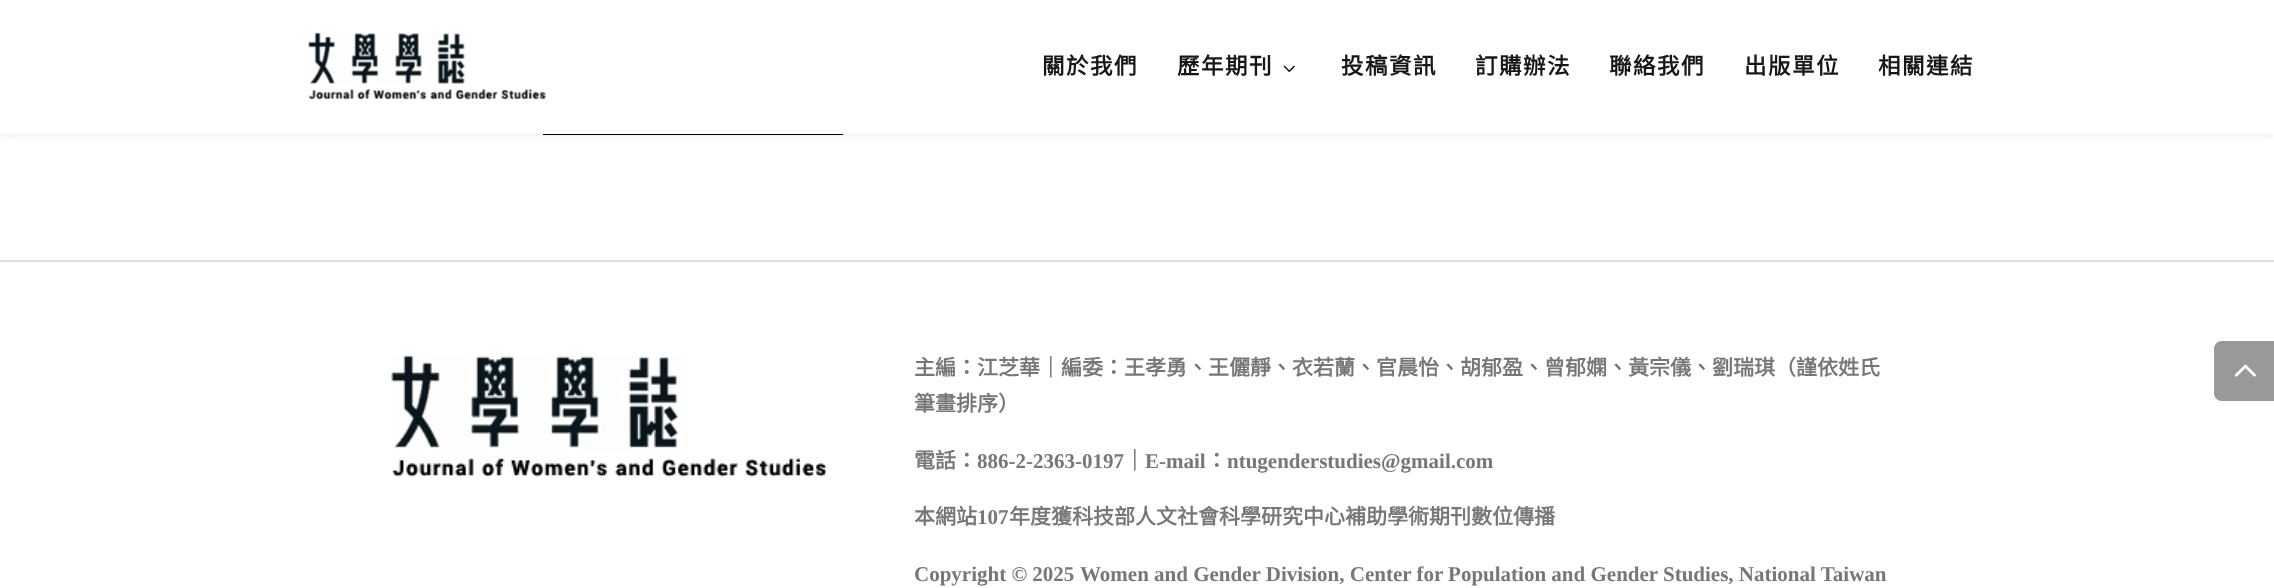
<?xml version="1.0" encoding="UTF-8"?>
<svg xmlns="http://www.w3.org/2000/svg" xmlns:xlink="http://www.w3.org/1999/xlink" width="2274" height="588">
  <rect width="100%" height="100%" fill="#ffffff" />
  <rect x="543" y="134" width="300" height="1" fill="#000000" />
  <rect width="2274" height="134" fill="#000000" fill-opacity="0.1" filter="blur(5px)" />
  <rect width="2274" height="134" fill="#ffffff" />
  <image x="308" y="32" width="238" height="68" xlink:href="image1.png" />
  <image x="1283" y="65" width="12" height="7" xlink:href="image2.png" />
  <rect y="260" width="2274" height="2" fill="#dddddd" />
  <image x="391" y="355" width="436" height="122" xlink:href="image3.png" />
  <path d="M 2222 341 h 52 v 60 h -52 c -4.5 0 -8 -3.5 -8 -8 v -44 c 0 -4.5 3.5 -8 8 -8 z" fill="#999999" />
  <image x="2234" y="364" width="22" height="13" xlink:href="image4.png" />
  <text x="1042" y="74" style="font-family: Noto Sans CJK TC; font-size: 22.5px; font-weight: bold; letter-spacing: 1.5px; fill: #171717">關於我們</text>
  <text x="1177" y="74" style="font-family: Noto Sans CJK TC; font-size: 22.5px; font-weight: bold; letter-spacing: 1.5px; fill: #171717">歷年期刊</text>
  <text x="1341" y="74" style="font-family: Noto Sans CJK TC; font-size: 22.5px; font-weight: bold; letter-spacing: 1.5px; fill: #171717">投稿資訊</text>
  <text x="1475" y="74" style="font-family: Noto Sans CJK TC; font-size: 22.5px; font-weight: bold; letter-spacing: 1.5px; fill: #171717">訂購辦法</text>
  <text x="1609" y="74" style="font-family: Noto Sans CJK TC; font-size: 22.5px; font-weight: bold; letter-spacing: 1.5px; fill: #171717">聯絡我們</text>
  <text x="1744" y="74" style="font-family: Noto Sans CJK TC; font-size: 22.5px; font-weight: bold; letter-spacing: 1.5px; fill: #171717">出版單位</text>
  <text x="1878" y="74" style="font-family: Noto Sans CJK TC; font-size: 22.5px; font-weight: bold; letter-spacing: 1.5px; fill: #171717">相關連結</text>
  <text x="914" y="375" style="font-family: Noto Sans CJK TC; font-size: 21px; font-weight: bold; fill: #777777">主編：江芝華｜編委：王孝勇、王儷靜、衣若蘭、官晨怡、胡郁盈、曾郁嫻、黃宗儀、劉瑞琪（謹依姓氏</text>
  <text x="914" y="411" style="font-family: Noto Sans CJK TC; font-size: 21px; font-weight: bold; fill: #777777">筆畫排序）</text>
  <text x="914" y="468" style="font-family: Noto Sans CJK TC; font-size: 21px; font-weight: bold; fill: #777777">電話：</text>
  <text x="977" y="468" style="font-family: Liberation Serif; font-size: 21px; font-weight: bold; fill: #777777">886-2-2363-0197</text>
  <text x="1124" y="468" style="font-family: Noto Sans CJK TC; font-size: 21px; font-weight: bold; fill: #777777">｜</text>
  <text x="1145" y="468" style="font-family: Liberation Serif; font-size: 21px; font-weight: bold; fill: #777777">E-mail</text>
  <text x="1206" y="468" style="font-family: Noto Sans CJK TC; font-size: 21px; font-weight: bold; fill: #777777">：</text>
  <text x="1227" y="468" style="font-family: Liberation Serif; font-size: 21px; font-weight: bold; fill: #777777">ntugenderstudies@gmail.com</text>
  <text x="914" y="524" style="font-family: Noto Sans CJK TC; font-size: 21px; font-weight: bold; fill: #777777">本網站</text>
  <text x="977" y="524" style="font-family: Liberation Serif; font-size: 21px; font-weight: bold; fill: #777777">107</text>
  <text x="1009" y="524" style="font-family: Noto Sans CJK TC; font-size: 21px; font-weight: bold; fill: #777777">年度獲科技部人文社會科學研究中心補助學術期刊數位傳播</text>
  <text x="914" y="581" style="font-family: Liberation Serif; font-size: 21px; font-weight: bold; fill: #777777">Copyright © 2025</text>
  <text x="1080" y="581" style="font-family: Liberation Serif; font-size: 21px; font-weight: bold; fill: #777777">Women and Gender Division, Center for Population and Gender Studies, National Taiwan</text>
</svg>
